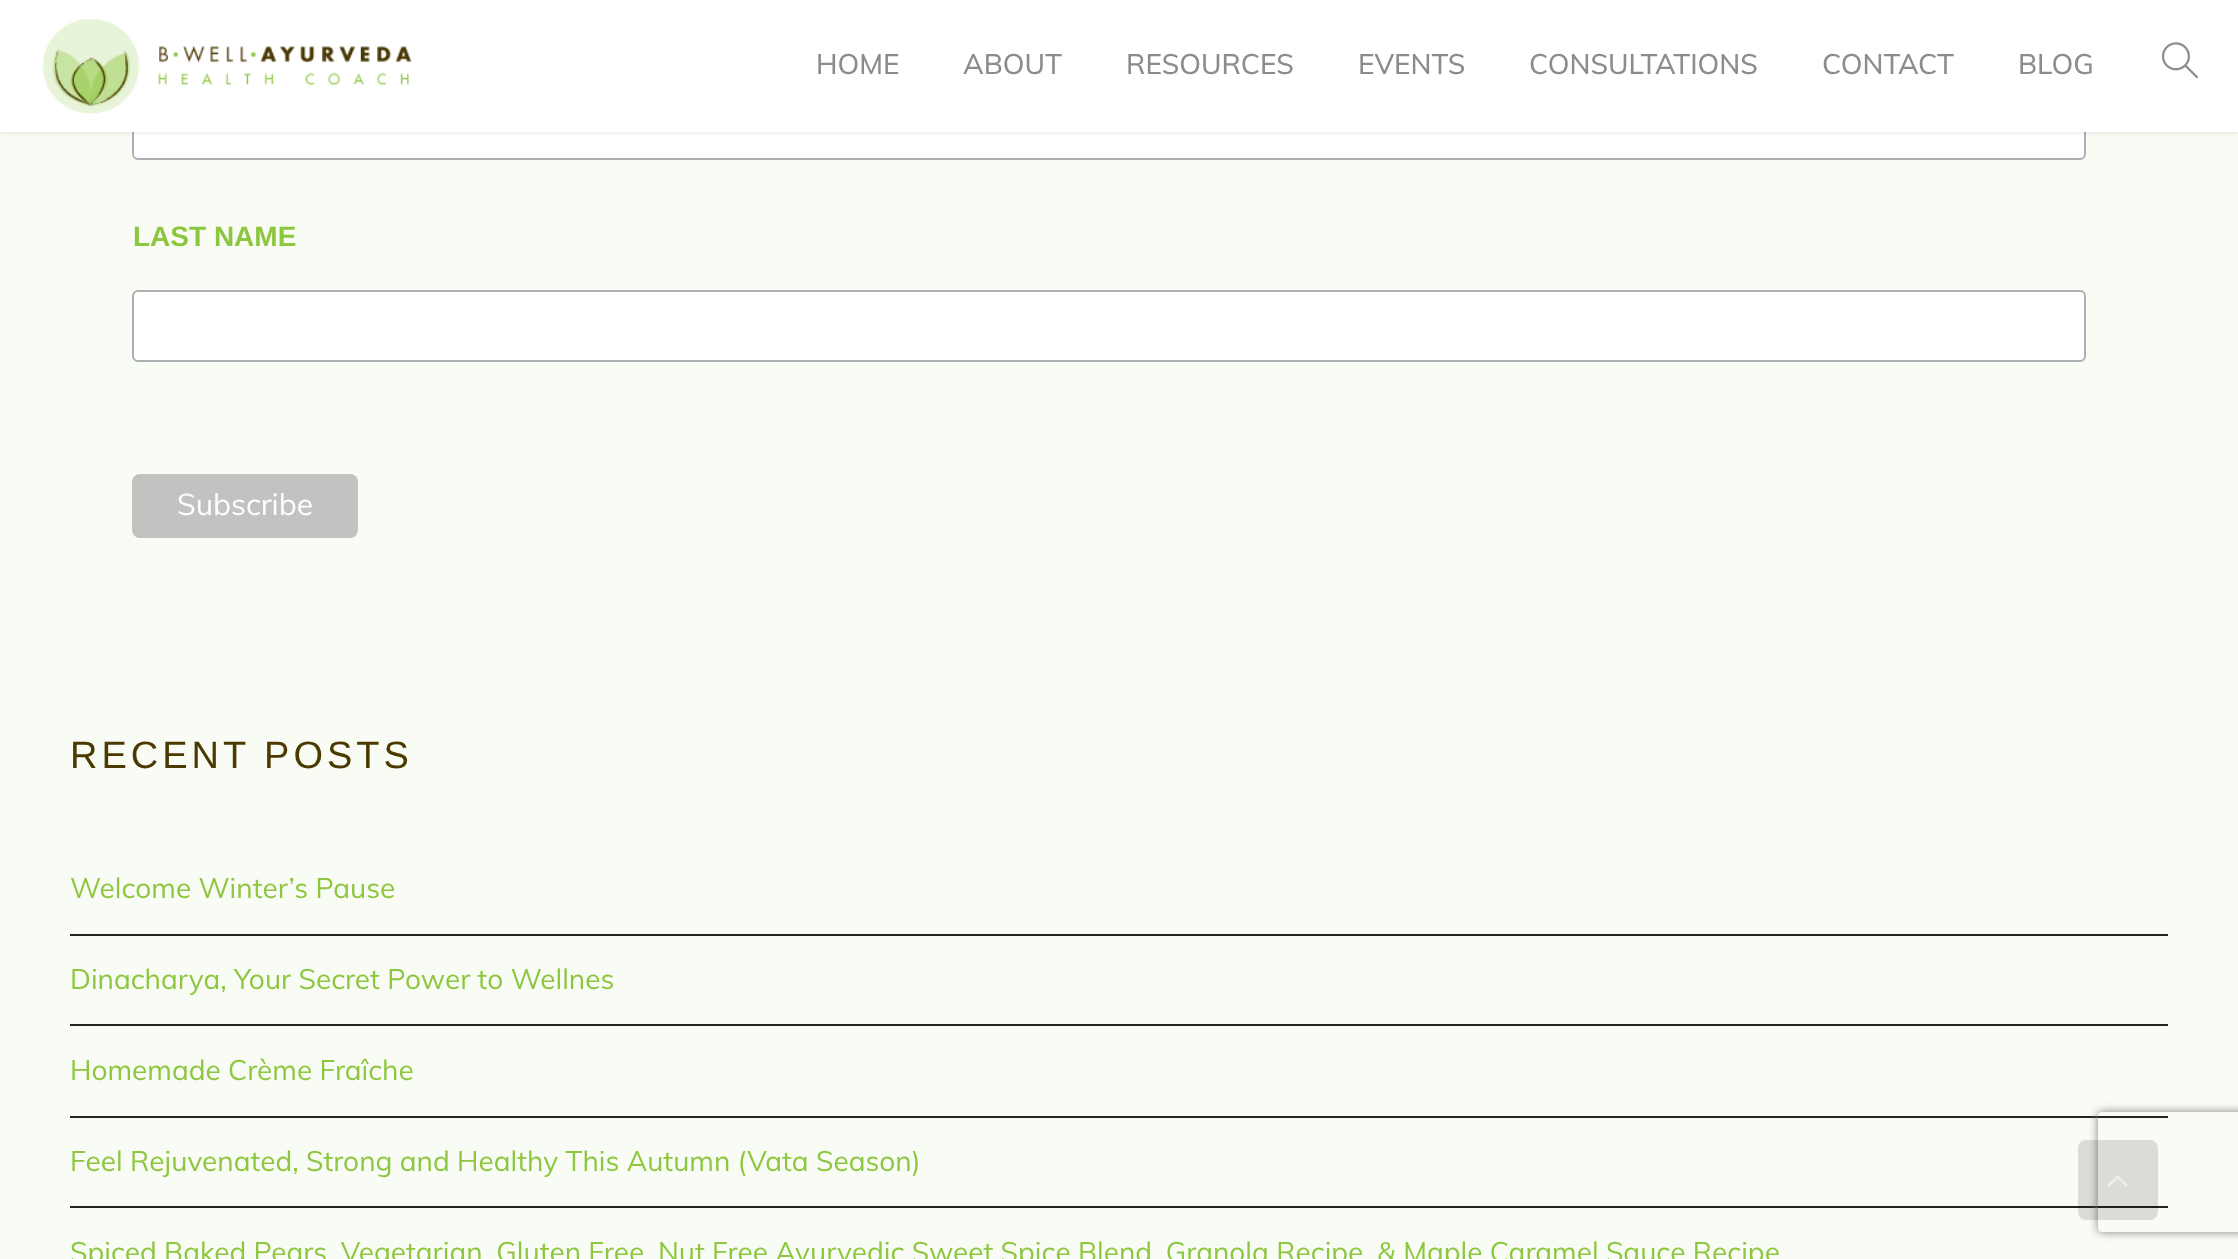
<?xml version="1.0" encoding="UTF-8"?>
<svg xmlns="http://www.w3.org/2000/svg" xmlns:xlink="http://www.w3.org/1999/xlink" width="2238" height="1259">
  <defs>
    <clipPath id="clip1"><path d="M 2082 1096 h 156 v 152 h -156 z m 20 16 h 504 c 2 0 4 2 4 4 v 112 c 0 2 -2 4 -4 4 h -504 c -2 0 -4 -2 -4 -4 v -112 c 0 -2 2 -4 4 -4 z" clip-rule="evenodd" /></clipPath>
  </defs>
  <rect width="100%" height="100%" fill="#f9fcf5" />
  <rect x="133" y="89" width="1952" height="70" rx="5" fill="#ffffff" stroke="#abb0b2" stroke-width="2" />
  <rect y="2" width="2238" height="132" fill="#000000" fill-opacity="0.07" filter="blur(2px)" />
  <rect width="2238" height="132" fill="#ffffff" />
  <image x="42" y="19" width="370" height="95" xlink:href="image1.png" />
  <image x="2161" y="42" width="37" height="37" xlink:href="image2.png" />
  <rect x="133" y="291" width="1952" height="70" rx="5" fill="#ffffff" stroke="#abb0b2" stroke-width="2" />
  <rect x="132" y="474" width="226" height="64" rx="8" fill="#c2c3c1" />
  <rect x="70" y="934" width="2098" height="2" fill="#232323" />
  <rect x="70" y="1024" width="2098" height="2" fill="#232323" />
  <rect x="70" y="1116" width="2098" height="2" fill="#232323" />
  <rect x="70" y="1206" width="2098" height="2" fill="#232323" />
  <g clip-path="url(#clip1)">
    <rect x="2098" y="1112" width="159" height="120" rx="4" fill="#808080" filter="blur(5px)" />
  </g>
  <rect x="2078" y="1140" width="80" height="80" rx="8" fill="#000000" fill-opacity="0.12" />
  <image x="2107" y="1175" width="21" height="12" xlink:href="image3.png" />
  <text x="816" y="74" style="font-family: Muli; font-size: 28px; font-weight: 500; fill: #8c8c8c">HOME</text>
  <text x="963" y="74" style="font-family: Muli; font-size: 28px; font-weight: 500; fill: #8c8c8c">ABOUT</text>
  <text x="1126" y="74" style="font-family: Muli; font-size: 28px; font-weight: 500; fill: #8c8c8c">RESOURCES</text>
  <text x="1358" y="74" style="font-family: Muli; font-size: 28px; font-weight: 500; fill: #8c8c8c">EVENTS</text>
  <text x="1529" y="74" style="font-family: Muli; font-size: 28px; font-weight: 500; fill: #8c8c8c">CONSULTATIONS</text>
  <text x="1822" y="74" style="font-family: Muli; font-size: 28px; font-weight: 500; fill: #8c8c8c">CONTACT</text>
  <text x="2018" y="74" style="font-family: Muli; font-size: 28px; font-weight: 500; fill: #8c8c8c">BLOG</text>
  <text x="133" y="246" style="font-family: Liberation Sans; font-size: 28px; font-weight: bold; fill: #8dc63f">LAST NAME</text>
  <text x="177" y="515" style="font-family: Muli; font-size: 30px; fill: #fdfefc">Subscribe</text>
  <text x="70" y="768" style="font-family: Liberation Sans; font-size: 38px; letter-spacing: 4px; fill: #4b3900">RECENT POSTS</text>
  <text x="70" y="898" style="font-family: Muli; font-size: 28px; fill: #8dc63f">Welcome Winter’s Pause</text>
  <text x="70" y="989" style="font-family: Muli; font-size: 28px; fill: #8dc63f">Dinacharya, Your Secret Power to Wellnes</text>
  <text x="70" y="1080" style="font-family: Muli; font-size: 28px; fill: #8dc63f">Homemade Crème Fraîche</text>
  <text x="70" y="1171" style="font-family: Muli; font-size: 28px; fill: #8dc63f">Feel Rejuvenated, Strong and Healthy This Autumn (Vata Season)</text>
  <text x="70" y="1262" style="font-family: Muli; font-size: 28px; fill: #8dc63f">Spiced Baked Pears, Vegetarian, Gluten Free, Nut Free Ayurvedic Sweet Spice Blend, Granola Recipe, &amp; Maple Caramel Sauce Recipe</text>
</svg>
